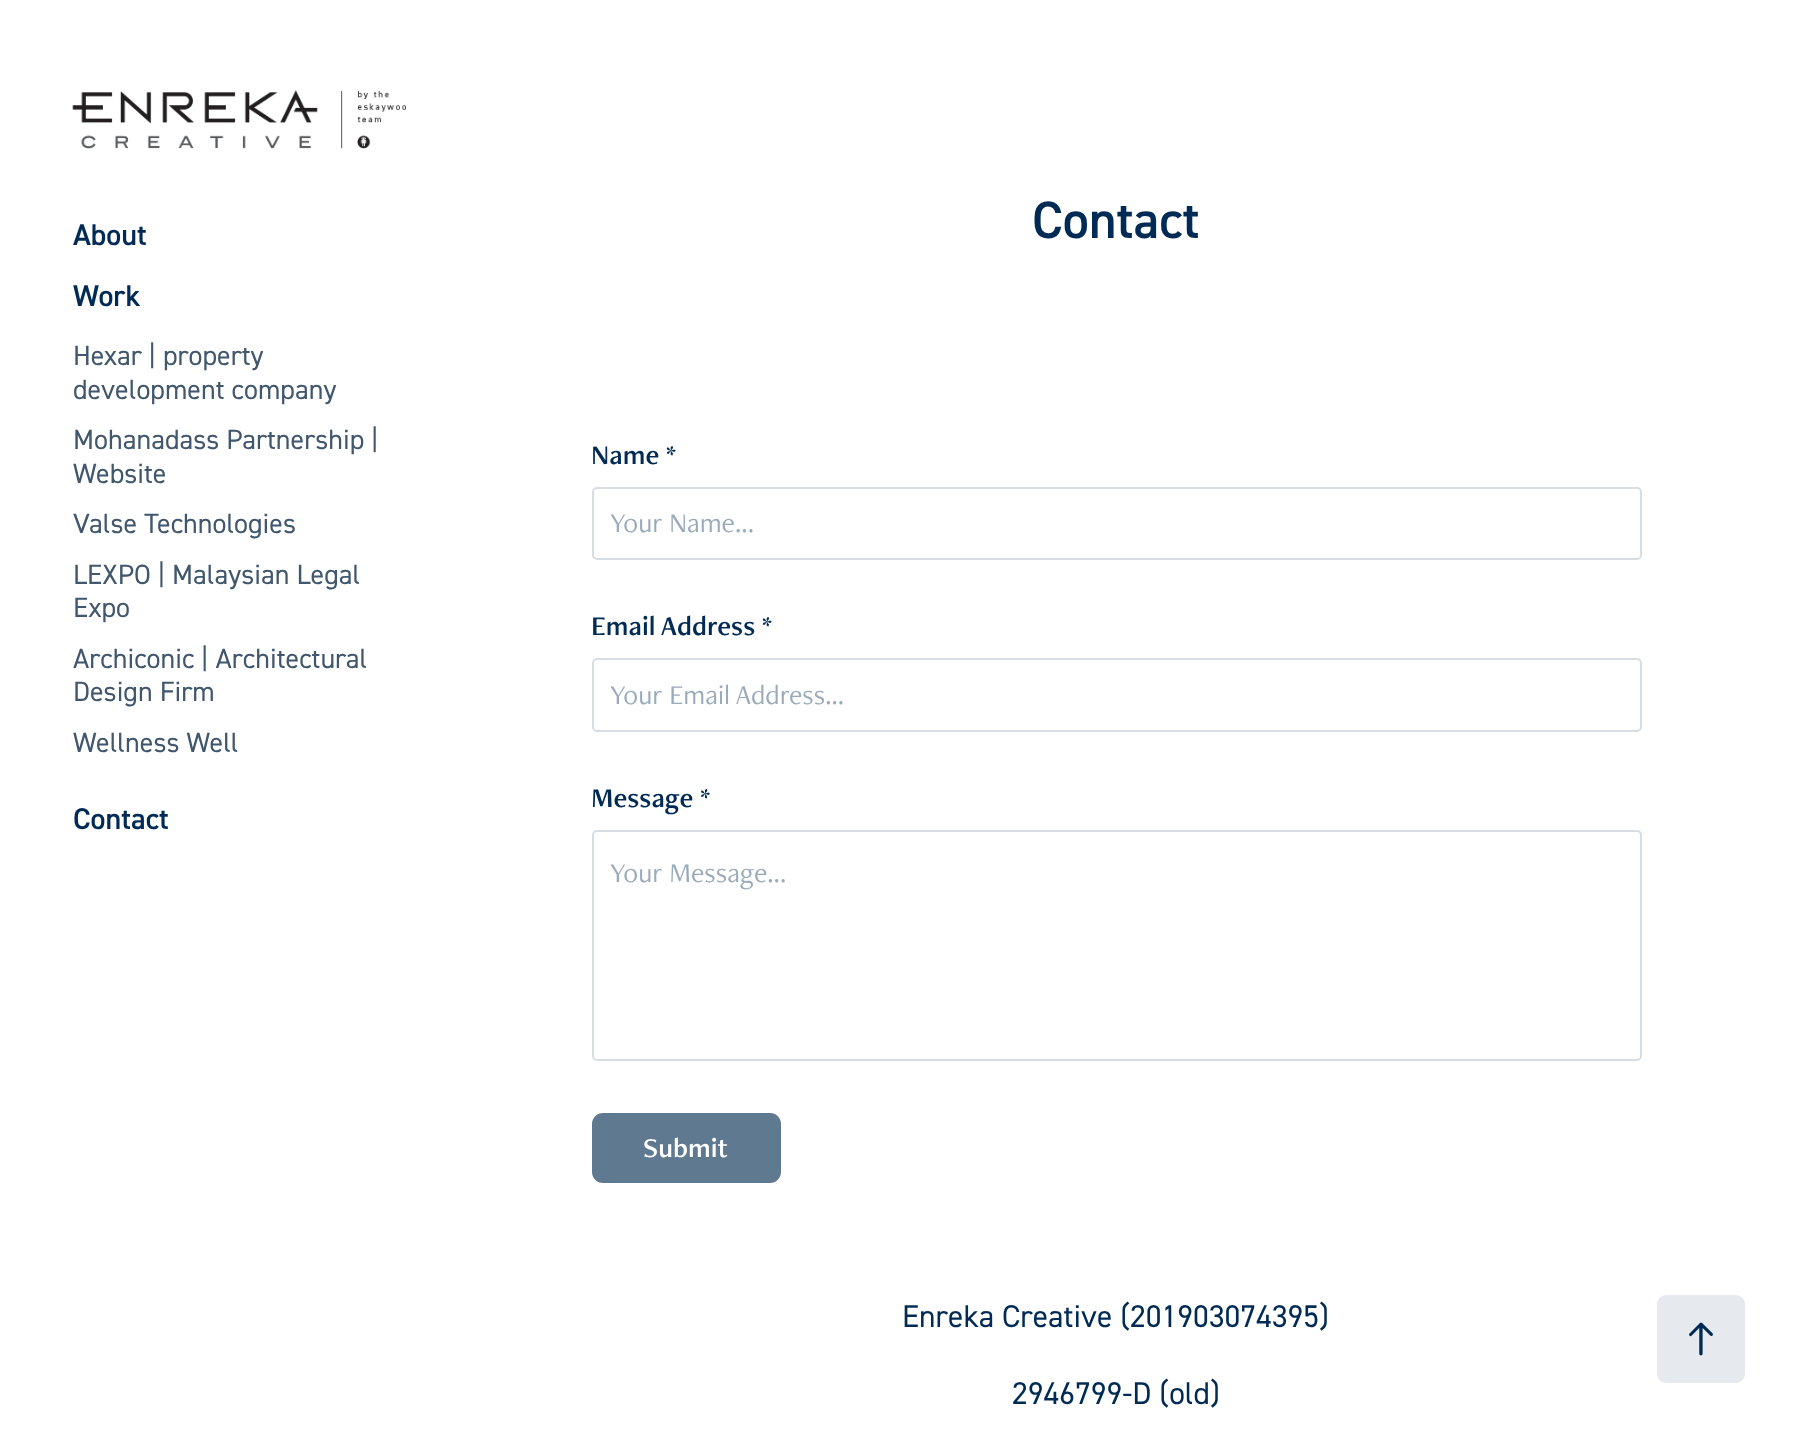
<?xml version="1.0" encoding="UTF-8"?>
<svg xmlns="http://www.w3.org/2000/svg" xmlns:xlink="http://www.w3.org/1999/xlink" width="1814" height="1451">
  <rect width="100%" height="100%" fill="#ffffff" />
  <image x="72" y="90" width="334" height="59" xlink:href="image1.png" />
  <rect x="593" y="488" width="1048" height="71" rx="4" fill="none" stroke="#d7dde3" stroke-width="2" />
  <rect x="593" y="659" width="1048" height="72" rx="4" fill="none" stroke="#d7dde3" stroke-width="2" />
  <rect x="593" y="831" width="1048" height="229" rx="4" fill="none" stroke="#d7dde3" stroke-width="2" />
  <rect x="592" y="1113" width="189" height="70" rx="11" fill="#5f7991" />
  <rect x="1657" y="1295" width="88" height="88" rx="9" fill="#e6eaee" />
  <image x="1689" y="1322" width="24" height="34" xlink:href="image2.png" />
  <text x="73" y="245" style="font-family: 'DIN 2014'; font-size: 30px; font-weight: 600; fill: #012b55">About</text>
  <text x="73" y="306" style="font-family: 'DIN 2014'; font-size: 30px; font-weight: 600; fill: #012b55">Work</text>
  <text x="73" y="365" style="font-family: 'DIN 2014'; font-size: 28px; fill: #41576d">Hexar | property</text>
  <text x="73" y="399" style="font-family: 'DIN 2014'; font-size: 28px; fill: #41576d">development company</text>
  <text x="73" y="449" style="font-family: 'DIN 2014'; font-size: 28px; fill: #41576d">Mohanadass Partnership |</text>
  <text x="73" y="483" style="font-family: 'DIN 2014'; font-size: 28px; fill: #41576d">Website</text>
  <text x="73" y="533" style="font-family: 'DIN 2014'; font-size: 28px; fill: #41576d">Valse Technologies</text>
  <text x="73" y="584" style="font-family: 'DIN 2014'; font-size: 28px; fill: #41576d">LEXPO | Malaysian Legal</text>
  <text x="73" y="617" style="font-family: 'DIN 2014'; font-size: 28px; fill: #41576d">Expo</text>
  <text x="73" y="668" style="font-family: 'DIN 2014'; font-size: 28px; fill: #41576d">Archiconic | Architectural</text>
  <text x="73" y="701" style="font-family: 'DIN 2014'; font-size: 28px; fill: #41576d">Design Firm</text>
  <text x="73" y="752" style="font-family: 'DIN 2014'; font-size: 28px; fill: #41576d">Wellness Well</text>
  <text x="73" y="829" style="font-family: 'DIN 2014'; font-size: 30px; font-weight: 600; fill: #012b55">Contact</text>
  <text x="1032" y="238" style="font-family: 'DIN 2014'; font-size: 52.5px; font-weight: 600; fill: #012b55">Contact</text>
  <text x="591" y="464" style="font-family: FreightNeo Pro; font-size: 28px; fill: #012b55">Name *</text>
  <text x="610" y="532" style="font-family: 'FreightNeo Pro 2'; font-size: 28px; fill: #99aabb">Your Name...</text>
  <text x="591" y="635" style="font-family: FreightNeo Pro; font-size: 28px; fill: #012b55">Email Address *</text>
  <text x="610" y="704" style="font-family: 'FreightNeo Pro 2'; font-size: 28px; fill: #99aabb">Your Email Address...</text>
  <text x="591" y="807" style="font-family: FreightNeo Pro; font-size: 28px; fill: #012b55">Message *</text>
  <text x="610" y="882" style="font-family: 'FreightNeo Pro 2'; font-size: 28px; fill: #99aabb">Your Message...</text>
  <text x="643" y="1157" style="font-family: FreightNeo Pro; font-size: 28px; fill: #ffffff">Submit</text>
  <text x="902" y="1327" style="font-family: 'DIN 2014'; font-size: 31.5px; fill: #012b55">Enreka Creative (201903074395)</text>
  <text x="1012" y="1404" style="font-family: 'DIN 2014'; font-size: 31.5px; fill: #012b55">2946799-D (old)</text>
</svg>
